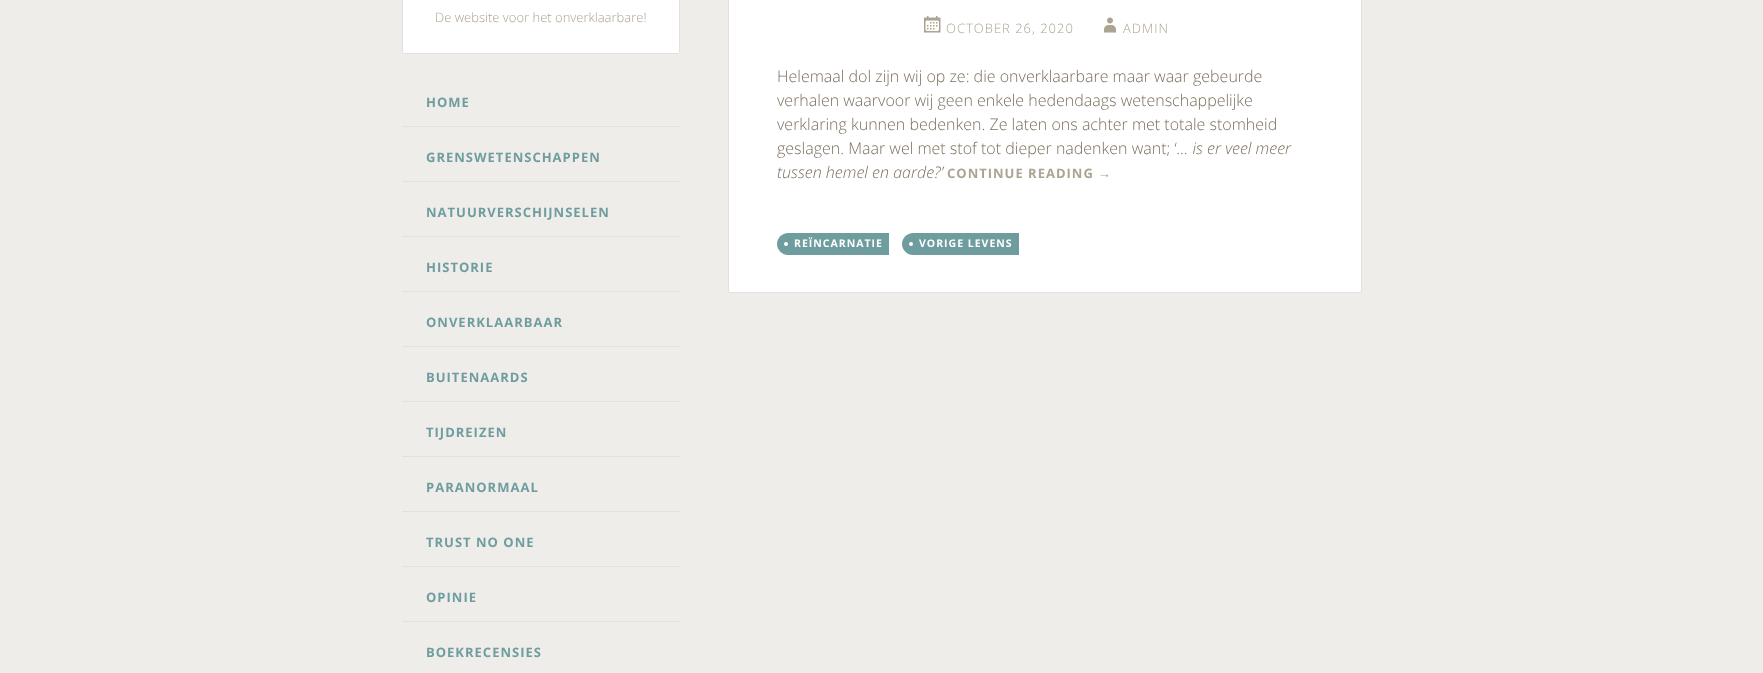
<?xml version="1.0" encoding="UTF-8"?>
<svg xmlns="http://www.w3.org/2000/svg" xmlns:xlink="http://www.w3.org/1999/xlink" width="1763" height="673">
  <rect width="100%" height="100%" fill="#efedea" />
  <path d="M 402 -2 h 278 v 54 c 0 1 -1 2 -2 2 h -274 c -1 0 -2 -1 -2 -2 z" fill="#ffffff" />
  <rect x="679" width="1" height="53" fill="#e4e1dc" />
  <rect x="403" y="53" width="276" height="1" fill="#e4e1dc" />
  <rect x="402" width="1" height="53" fill="#e4e1dc" />
  <rect x="402" y="126" width="278" height="1" fill="#e4e1dc" />
  <rect x="402" y="181" width="278" height="1" fill="#e4e1dc" />
  <rect x="402" y="236" width="278" height="1" fill="#e4e1dc" />
  <rect x="402" y="291" width="278" height="1" fill="#e4e1dc" />
  <rect x="402" y="346" width="278" height="1" fill="#e4e1dc" />
  <rect x="402" y="401" width="278" height="1" fill="#e4e1dc" />
  <rect x="402" y="456" width="278" height="1" fill="#e4e1dc" />
  <rect x="402" y="511" width="278" height="1" fill="#e4e1dc" />
  <rect x="402" y="566" width="278" height="1" fill="#e4e1dc" />
  <rect x="402" y="621" width="278" height="1" fill="#e4e1dc" />
  <rect x="728.5" y="-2.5" width="633" height="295" rx="1.5" fill="#ffffff" stroke="#e4e1dc" />
  <image x="924" y="16" width="17" height="17" xlink:href="image1.png" />
  <image x="1104" y="17" width="12" height="16" xlink:href="image2.png" />
  <rect x="788" y="233" width="101" height="22" fill="#6f9d9f" />
  <path d="M 788 233 v 22 c -6 0 -11 -5 -11 -11 c 0 -6 5 -11 11 -11 z" fill="#6f9d9f" />
  <circle cx="786" cy="244" r="2" fill="#ffffff" />
  <rect x="913" y="233" width="106" height="22" fill="#6f9d9f" />
  <path d="M 913 233 v 22 c -6 0 -11 -5 -11 -11 c 0 -6 5 -11 11 -11 z" fill="#6f9d9f" />
  <circle cx="911" cy="244" r="2" fill="#ffffff" />
  <text x="435" y="22" style="font-family: Open Sans; font-size: 13px; font-weight: 300; fill: #ada393">De website voor het onverklaarbare!</text>
  <text x="426" y="107" style="font-family: Open Sans; font-size: 13px; font-weight: bold; letter-spacing: 1px; fill: #6f9d9f">HOME</text>
  <text x="426" y="162" style="font-family: Open Sans; font-size: 13px; font-weight: bold; letter-spacing: 1px; fill: #6f9d9f">GRENSWETENSCHAPPEN</text>
  <text x="426" y="217" style="font-family: Open Sans; font-size: 13px; font-weight: bold; letter-spacing: 1px; fill: #6f9d9f">NATUURVERSCHIJNSELEN</text>
  <text x="426" y="272" style="font-family: Open Sans; font-size: 13px; font-weight: bold; letter-spacing: 1px; fill: #6f9d9f">HISTORIE</text>
  <text x="426" y="327" style="font-family: Open Sans; font-size: 13px; font-weight: bold; letter-spacing: 1px; fill: #6f9d9f">ONVERKLAARBAAR</text>
  <text x="426" y="382" style="font-family: Open Sans; font-size: 13px; font-weight: bold; letter-spacing: 1px; fill: #6f9d9f">BUITENAARDS</text>
  <text x="426" y="437" style="font-family: Open Sans; font-size: 13px; font-weight: bold; letter-spacing: 1px; fill: #6f9d9f">TIJDREIZEN</text>
  <text x="426" y="492" style="font-family: Open Sans; font-size: 13px; font-weight: bold; letter-spacing: 1px; fill: #6f9d9f">PARANORMAAL</text>
  <text x="426" y="547" style="font-family: Open Sans; font-size: 13px; font-weight: bold; letter-spacing: 1px; fill: #6f9d9f">TRUST NO ONE</text>
  <text x="426" y="602" style="font-family: Open Sans; font-size: 13px; font-weight: bold; letter-spacing: 1px; fill: #6f9d9f">OPINIE</text>
  <text x="426" y="657" style="font-family: Open Sans; font-size: 13px; font-weight: bold; letter-spacing: 1px; fill: #6f9d9f">BOEKRECENSIES</text>
  <text x="946" y="33" style="font-family: Open Sans; font-size: 13px; font-weight: 300; letter-spacing: 1px; fill: #ada393">OCTOBER 26, 2020</text>
  <text x="1123" y="33" style="font-family: Open Sans; font-size: 13px; font-weight: 300; letter-spacing: 1px; fill: #ada393">ADMIN</text>
  <text x="777" y="82" style="font-family: Open Sans; font-size: 16px; font-weight: 300; fill: #7c705e">Helemaal dol zijn wij op ze: die onverklaarbare maar waar gebeurde</text>
  <text x="777" y="106" style="font-family: Open Sans; font-size: 16px; font-weight: 300; fill: #7c705e">verhalen waarvoor wij geen enkele hedendaags wetenschappelijke</text>
  <text x="777" y="130" style="font-family: Open Sans; font-size: 16px; font-weight: 300; fill: #7c705e">verklaring kunnen bedenken. Ze laten ons achter met totale stomheid</text>
  <text x="777" y="154" style="font-family: Open Sans; font-size: 16px; font-weight: 300; fill: #7c705e">geslagen. Maar wel met stof tot dieper nadenken want; ‘</text>
  <text x="1177" y="154" style="font-family: Open Sans; font-size: 16px; font-weight: 300; font-style: italic; fill: #7c705e">… is er veel meer</text>
  <text x="777" y="178" style="font-family: Open Sans; font-size: 16px; font-weight: 300; font-style: italic; fill: #7c705e">tussen hemel en aarde?’</text>
  <text x="947" y="178" style="font-family: Open Sans; font-size: 13px; font-weight: bold; letter-spacing: 1px; fill: #ada393">CONTINUE READING</text>
  <text x="1098" y="178" style="font-family: Liberation Sans; font-size: 13px; font-weight: bold; letter-spacing: 1px; fill: #ada393">→</text>
  <text x="794" y="247" style="font-family: Open Sans; font-size: 10.5px; font-weight: bold; letter-spacing: 1px; fill: #ffffff">REÏNCARNATIE</text>
  <text x="919" y="247" style="font-family: Open Sans; font-size: 10.5px; font-weight: bold; letter-spacing: 1px; fill: #ffffff">VORIGE LEVENS</text>
</svg>
